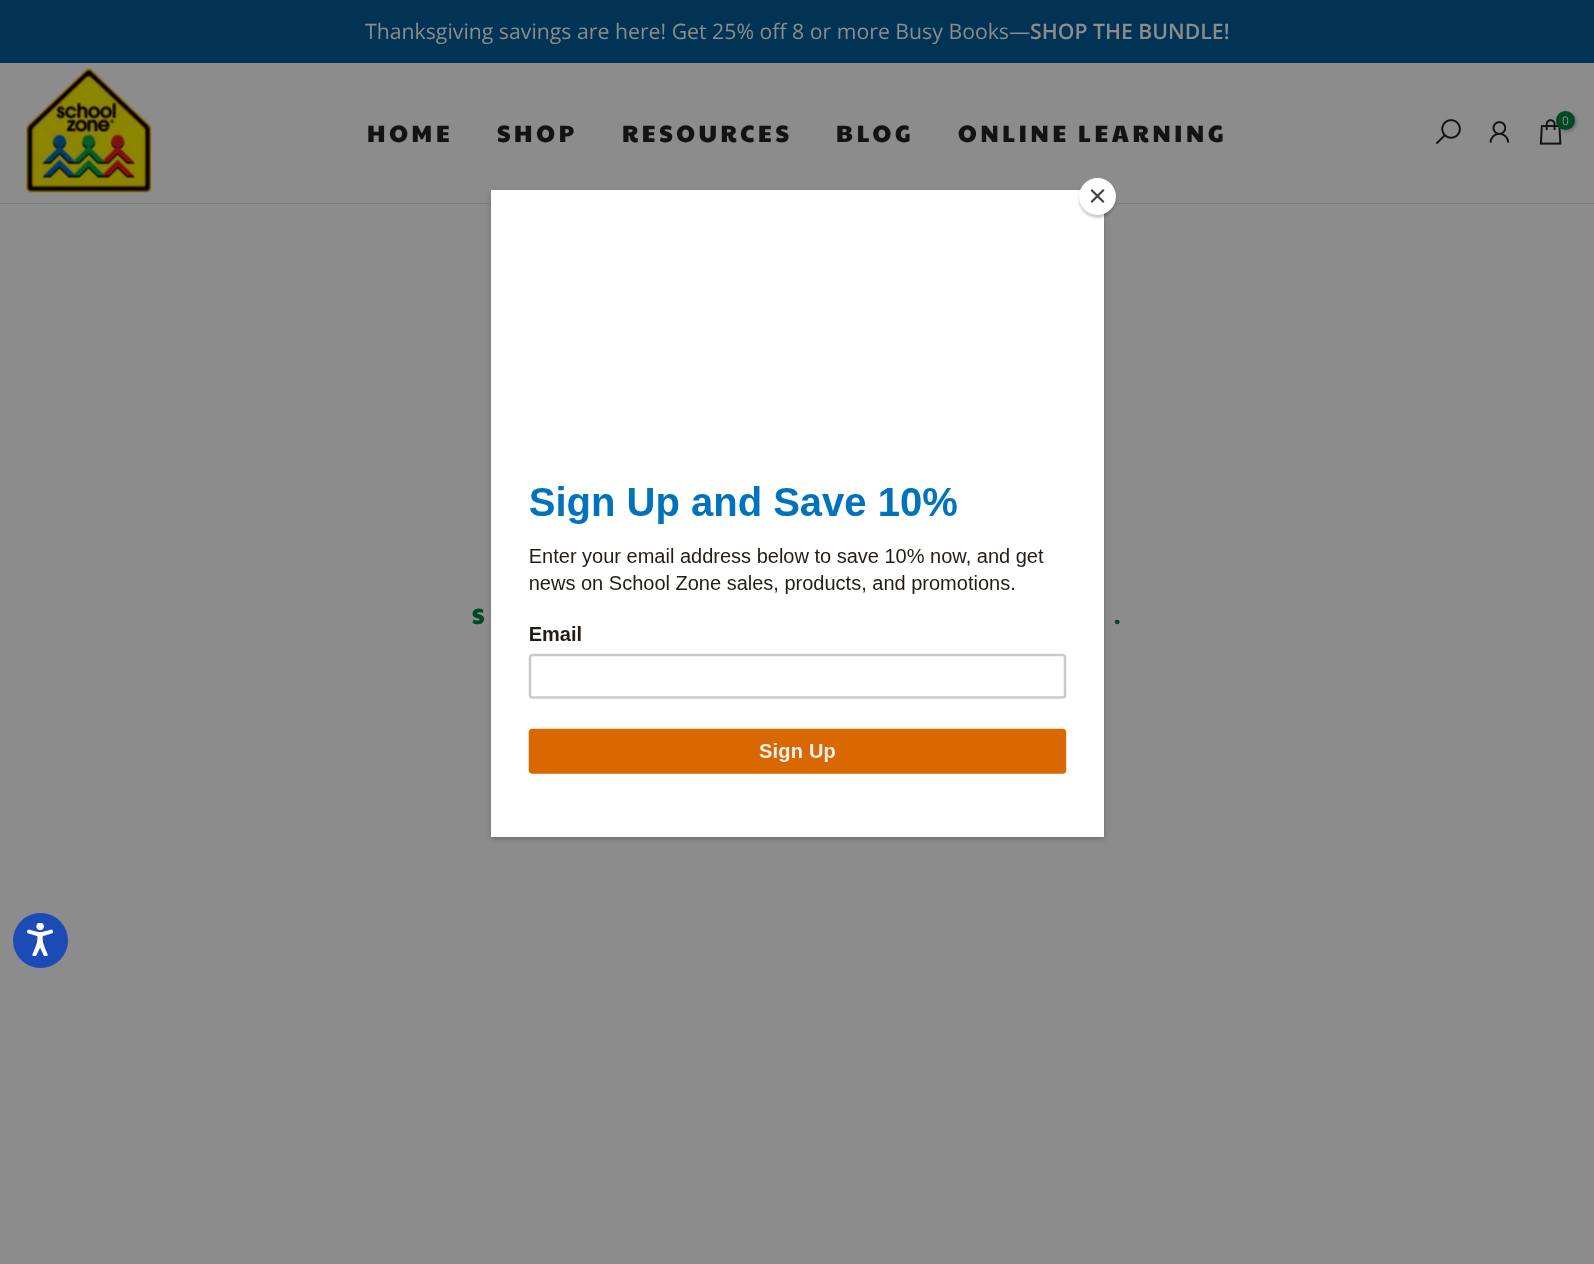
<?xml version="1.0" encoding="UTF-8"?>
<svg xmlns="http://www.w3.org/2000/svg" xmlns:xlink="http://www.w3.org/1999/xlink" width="1594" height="1264">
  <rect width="100%" height="100%" fill="#8c8c8c" />
  <rect width="1594" height="63" fill="#003354" />
  <rect y="203" width="1594" height="1" fill="#7c7c7c" />
  <image x="26" y="68" width="126" height="125" xlink:href="image1.png" />
  <image x="1435" y="119" width="26" height="26" xlink:href="image2.png" />
  <image x="1489" y="121" width="21" height="22" xlink:href="image3.png" />
  <image x="1539" y="119" width="23" height="26" xlink:href="image4.png" />
  <rect x="1558" y="113" width="18" height="18" rx="9" fill="#000000" fill-opacity="0.3" filter="blur(2px)" />
  <circle cx="1565.5" cy="120.5" r="9.5" fill="#004923" />
  <rect x="491" y="193" width="613" height="646" fill="#000000" fill-opacity="0.2" filter="blur(2.5px)" />
  <image x="491" y="190" width="613" height="647" xlink:href="image5.png" />
  <rect x="1079" y="180" width="37" height="38" rx="18.5" fill="#000000" fill-opacity="0.2" filter="blur(1px)" />
  <circle cx="1097.5" cy="196.5" r="18.5" fill="#ffffff" />
  <path d="M 1103 189 l 1.5 1.5 l -12.5 12.5 l -1.5 -1.5 z" fill="#414141" />
  <path d="M 1090.5 190.5 l 1.5 -1.5 l 12.5 12.5 l -1.5 1.5 z" fill="#414141" />
  <circle cx="40.5" cy="940.5" r="27.5" fill="#1c4bb6" />
  <image x="27" y="923" width="26" height="33" xlink:href="image6.png" />
  <text x="365" y="39" style="font-family: Open Sans; font-size: 21.25px; fill: #8c8c8c">Thanksgiving savings are here! Get 25% off 8 or more Busy Books—</text>
  <text x="1030" y="39" style="font-family: Open Sans; font-size: 21.25px; font-weight: 600; fill: #8c8c8c">SHOP THE BUNDLE!</text>
  <text x="1562" y="125" style="font-family: Open Sans; font-size: 12px; fill: #8c8c8c">0</text>
  <text x="367" y="142" style="font-family: Paytone One; font-size: 23.75px; letter-spacing: 3.75px; fill: #131313">HOME</text>
  <text x="497" y="142" style="font-family: Paytone One; font-size: 23.75px; letter-spacing: 3.75px; fill: #131313">SHOP</text>
  <text x="622" y="142" style="font-family: Paytone One; font-size: 23.75px; letter-spacing: 3.75px; fill: #131313">RESOURCES</text>
  <text x="836" y="142" style="font-family: Paytone One; font-size: 23.75px; letter-spacing: 3.75px; fill: #131313">BLOG</text>
  <text x="958" y="142" style="font-family: Paytone One; font-size: 23.75px; letter-spacing: 3.75px; fill: #131313">ONLINE LEARNING</text>
  <text x="472" y="624" style="font-family: Paytone One; font-size: 22px; letter-spacing: 2px; fill: #004923">S</text>
  <text x="1114" y="624" style="font-family: Paytone One; font-size: 22px; letter-spacing: 2px; fill: #004923">.</text>
</svg>
